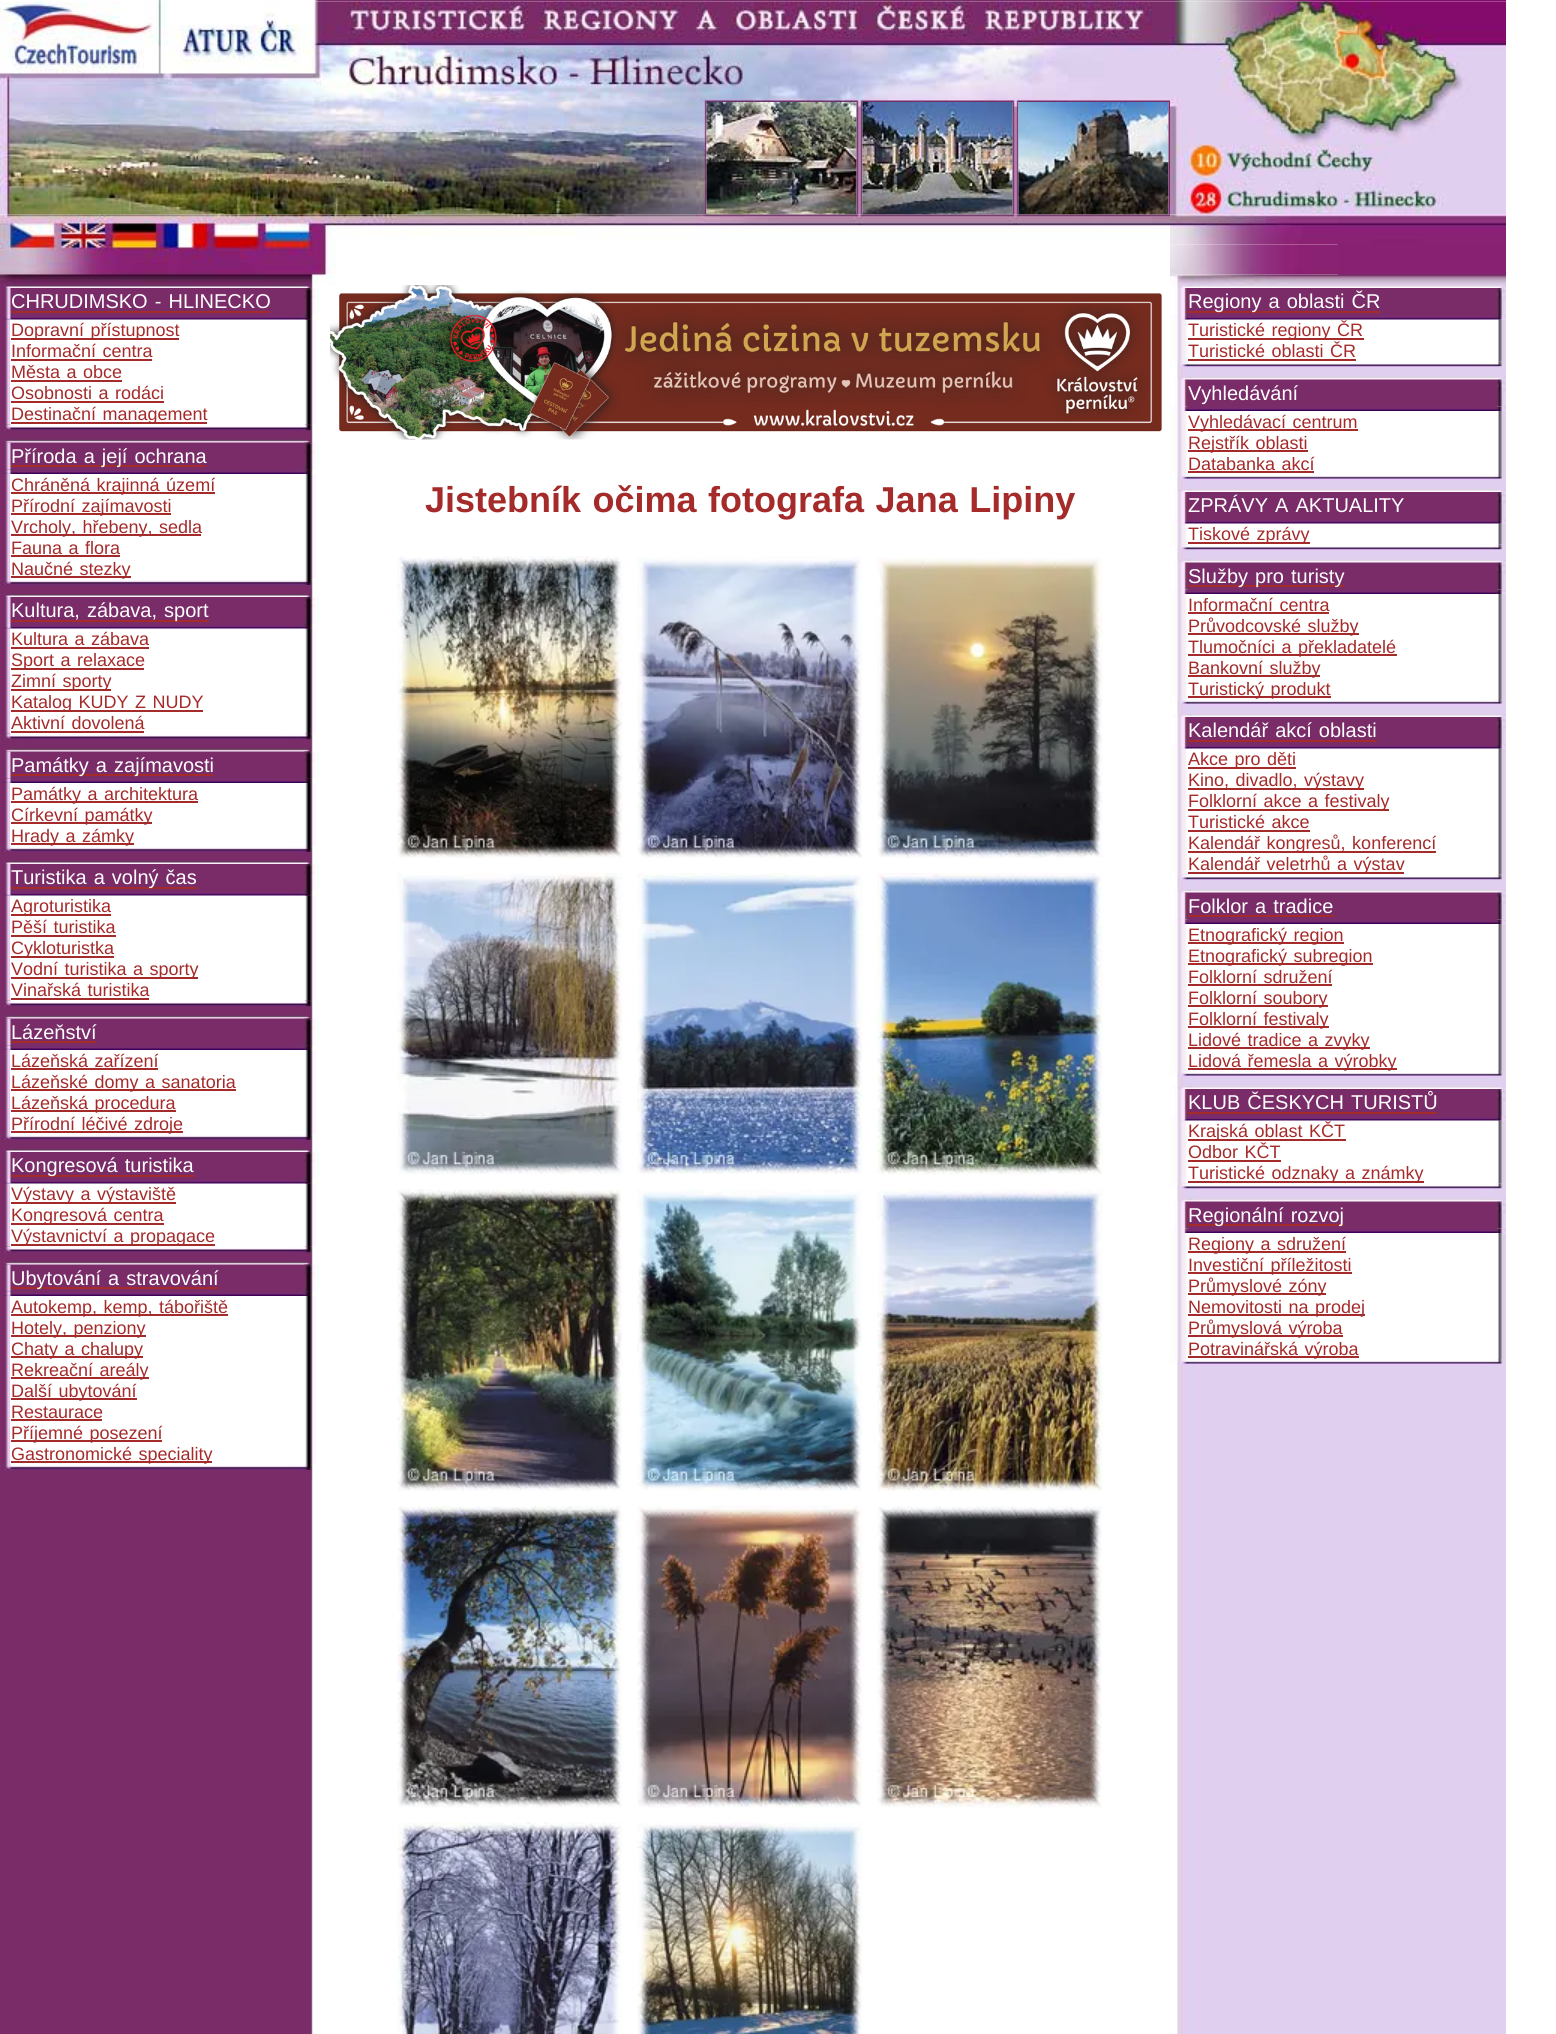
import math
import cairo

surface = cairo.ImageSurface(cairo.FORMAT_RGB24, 1556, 2034)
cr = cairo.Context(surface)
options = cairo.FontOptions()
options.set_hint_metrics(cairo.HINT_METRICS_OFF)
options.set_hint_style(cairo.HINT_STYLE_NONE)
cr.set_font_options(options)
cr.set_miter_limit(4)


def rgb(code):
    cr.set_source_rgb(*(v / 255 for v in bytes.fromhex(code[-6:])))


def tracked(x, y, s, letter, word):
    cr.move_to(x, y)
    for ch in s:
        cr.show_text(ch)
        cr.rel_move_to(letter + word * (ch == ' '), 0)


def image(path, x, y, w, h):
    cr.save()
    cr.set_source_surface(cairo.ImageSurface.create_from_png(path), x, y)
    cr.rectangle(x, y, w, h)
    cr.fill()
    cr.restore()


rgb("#ffffff")
cr.paint()
image("img/1.png", 144, 0, 1362, 2)
image("img/2.png", 0, 1, 1170, 101)
image("img/3.png", 1170, 1, 336, 214)
image("img/4.png", 0, 102, 707, 113)
image("img/5.png", 706, 102, 151, 113)
image("img/6.png", 856, 102, 7, 113)
image("img/7.png", 862, 102, 151, 113)
image("img/8.png", 1012, 102, 7, 113)
image("img/9.png", 1018, 102, 151, 113)
image("img/10.png", 1168, 102, 2, 113)
image("img/11.png", 0, 214, 1170, 71)
image("img/12.png", 1170, 214, 168, 31)
image("img/13.png", 1338, 214, 168, 30)
image("img/14.png", 1170, 244, 168, 31)
rgb("#882172")
cr.rectangle(1338, 244, 168, 31)
cr.fill()
image("img/15.png", 1170, 274, 336, 11)
image("img/16.png", 0, 288, 313, 1746)
image("img/17.png", 0, 285, 313, 3)
image("img/18.png", 0, 288, 11, 27)
rgb("#a52a2a")
cr.rectangle(11, 311, 259, 2)
cr.fill()
image("img/19.png", 304, 288, 15, 27)
image("img/21.png", 0, 319, 10, 106)
rgb("#ffffff")
cr.rectangle(10, 319, 295, 106)
cr.fill()
image("img/22.png", 304, 319, 12, 106)
image("img/20.png", 0, 315, 313, 5)
for x, y, w, h, color in [
    (11, 338, 168, 2, "#a52a2a"),
    (11, 359, 141, 2, "#a52a2a"),
    (11, 380, 111, 2, "#a52a2a"),
    (11, 401, 153, 2, "#a52a2a"),
    (11, 422, 196, 2, "#a52a2a"),
]:
    rgb(color)
    cr.rectangle(x, y, w, h)
    cr.fill()
image("img/23.png", 0, 424, 313, 7)
image("img/24.png", 5, 430, 308, 10)
image("img/25.png", 0, 439, 313, 4)
image("img/26.png", 0, 442, 11, 28)
cr.rectangle(11, 465, 195, 2)
cr.fill()
image("img/27.png", 304, 442, 15, 28)
image("img/28.png", 0, 469, 313, 5)
image("img/29.png", 0, 474, 10, 105)
for x, y, w, h, color in [
    (10, 474, 295, 105, "#ffffff"),
    (11, 492, 204, 2, "#a52a2a"),
    (11, 513, 160, 2, "#a52a2a"),
    (11, 534, 190, 2, "#a52a2a"),
    (11, 555, 109, 2, "#a52a2a"),
    (11, 576, 120, 2, "#a52a2a"),
]:
    rgb(color)
    cr.rectangle(x, y, w, h)
    cr.fill()
image("img/30.png", 304, 474, 12, 105)
image("img/31.png", 0, 579, 313, 6)
image("img/32.png", 311, 585, 2, 9)
image("img/17.png", 0, 594, 313, 3)
image("img/18.png", 0, 597, 11, 27)
cr.rectangle(11, 620, 198, 2)
cr.fill()
image("img/19.png", 304, 597, 15, 27)
image("img/21.png", 0, 628, 10, 106)
rgb("#ffffff")
cr.rectangle(10, 628, 295, 106)
cr.fill()
image("img/22.png", 304, 628, 12, 106)
image("img/20.png", 0, 624, 313, 5)
for x, y, w, h, color in [
    (11, 647, 138, 2, "#a52a2a"),
    (11, 668, 133, 2, "#a52a2a"),
    (11, 689, 100, 2, "#a52a2a"),
    (11, 710, 192, 2, "#a52a2a"),
    (11, 731, 133, 2, "#a52a2a"),
]:
    rgb(color)
    cr.rectangle(x, y, w, h)
    cr.fill()
image("img/23.png", 0, 733, 313, 7)
image("img/24.png", 5, 739, 308, 10)
image("img/25.png", 0, 748, 313, 4)
image("img/26.png", 0, 751, 11, 28)
cr.rectangle(11, 774, 202, 2)
cr.fill()
image("img/27.png", 304, 751, 15, 28)
image("img/28.png", 0, 778, 313, 5)
image("img/33.png", 0, 783, 10, 63)
for x, y, w, h, color in [
    (10, 783, 295, 63, "#ffffff"),
    (11, 801, 187, 2, "#a52a2a"),
    (11, 822, 141, 2, "#a52a2a"),
    (11, 843, 123, 2, "#a52a2a"),
]:
    rgb(color)
    cr.rectangle(x, y, w, h)
    cr.fill()
image("img/34.png", 304, 783, 12, 63)
image("img/31.png", 0, 846, 313, 6)
image("img/32.png", 311, 852, 2, 9)
image("img/17.png", 0, 861, 313, 3)
image("img/18.png", 0, 864, 11, 27)
cr.rectangle(11, 887, 186, 2)
cr.fill()
image("img/19.png", 304, 864, 15, 27)
image("img/21.png", 0, 895, 10, 106)
rgb("#ffffff")
cr.rectangle(10, 895, 295, 106)
cr.fill()
image("img/22.png", 304, 895, 12, 106)
image("img/20.png", 0, 891, 313, 5)
for x, y, w, h, color in [
    (11, 914, 100, 2, "#a52a2a"),
    (11, 935, 105, 2, "#a52a2a"),
    (11, 956, 103, 2, "#a52a2a"),
    (11, 977, 187, 2, "#a52a2a"),
    (11, 998, 138, 2, "#a52a2a"),
]:
    rgb(color)
    cr.rectangle(x, y, w, h)
    cr.fill()
image("img/23.png", 0, 1000, 313, 7)
image("img/24.png", 5, 1006, 308, 10)
image("img/25.png", 0, 1015, 313, 4)
image("img/26.png", 0, 1018, 11, 28)
cr.rectangle(11, 1041, 85, 2)
cr.fill()
image("img/27.png", 304, 1018, 15, 28)
image("img/28.png", 0, 1045, 313, 5)
image("img/35.png", 0, 1050, 10, 84)
for x, y, w, h, color in [
    (10, 1050, 295, 84, "#ffffff"),
    (11, 1068, 147, 2, "#a52a2a"),
    (11, 1089, 225, 2, "#a52a2a"),
    (11, 1110, 165, 2, "#a52a2a"),
    (11, 1131, 172, 2, "#a52a2a"),
]:
    rgb(color)
    cr.rectangle(x, y, w, h)
    cr.fill()
image("img/36.png", 304, 1050, 12, 84)
image("img/31.png", 0, 1134, 313, 6)
image("img/32.png", 311, 1140, 2, 9)
image("img/17.png", 0, 1149, 313, 3)
image("img/18.png", 0, 1152, 11, 27)
cr.rectangle(11, 1175, 183, 2)
cr.fill()
image("img/19.png", 304, 1152, 15, 27)
image("img/37.png", 0, 1183, 10, 64)
rgb("#ffffff")
cr.rectangle(10, 1183, 295, 64)
cr.fill()
image("img/38.png", 304, 1183, 12, 64)
image("img/20.png", 0, 1179, 313, 5)
for x, y, w, h, color in [
    (11, 1202, 165, 2, "#a52a2a"),
    (11, 1223, 153, 2, "#a52a2a"),
    (11, 1244, 204, 2, "#a52a2a"),
]:
    rgb(color)
    cr.rectangle(x, y, w, h)
    cr.fill()
image("img/23.png", 0, 1246, 313, 7)
image("img/24.png", 5, 1252, 308, 10)
image("img/25.png", 0, 1261, 313, 4)
image("img/26.png", 0, 1264, 11, 28)
cr.rectangle(11, 1287, 207, 2)
cr.fill()
image("img/27.png", 304, 1264, 15, 28)
image("img/28.png", 0, 1291, 313, 5)
image("img/39.png", 0, 1296, 10, 168)
for x, y, w, h, color in [
    (10, 1296, 295, 168, "#ffffff"),
    (11, 1314, 217, 2, "#a52a2a"),
    (11, 1335, 135, 2, "#a52a2a"),
    (11, 1356, 132, 2, "#a52a2a"),
    (11, 1377, 138, 2, "#a52a2a"),
    (11, 1398, 126, 2, "#a52a2a"),
    (11, 1419, 91, 2, "#a52a2a"),
    (11, 1440, 151, 2, "#a52a2a"),
    (11, 1461, 201, 2, "#a52a2a"),
]:
    rgb(color)
    cr.rectangle(x, y, w, h)
    cr.fill()
image("img/40.png", 304, 1296, 12, 168)
image("img/31.png", 0, 1464, 313, 6)
image("img/32.png", 311, 1470, 2, 9)
image("img/41.png", 330, 285, 833, 155)
image("img/42.png", 397, 556, 226, 302)
image("img/43.png", 637, 556, 225, 302)
image("img/44.png", 877, 557, 226, 301)
image("img/45.png", 397, 873, 226, 302)
image("img/46.png", 637, 873, 226, 301)
image("img/47.png", 877, 873, 226, 302)
image("img/48.png", 397, 1189, 225, 302)
image("img/49.png", 637, 1189, 225, 302)
image("img/50.png", 877, 1189, 226, 302)
image("img/51.png", 397, 1506, 226, 302)
image("img/52.png", 637, 1506, 226, 302)
image("img/53.png", 877, 1506, 225, 302)
image("img/54.png", 397, 1822, 225, 212)
image("img/55.png", 637, 1822, 226, 212)
image("img/56.png", 1177, 319, 329, 1715)
image("img/57.png", 1173, 285, 333, 3)
image("img/58.png", 1175, 288, 13, 27)
rgb("#7a2c68")
cr.rectangle(1188, 288, 309, 27)
cr.fill()
rgb("#a52a2a")
cr.rectangle(1188, 311, 192, 2)
cr.fill()
image("img/59.png", 1497, 288, 9, 27)
image("img/61.png", 1170, 319, 18, 43)
rgb("#ffffff")
cr.rectangle(1188, 319, 309, 43)
cr.fill()
image("img/62.png", 1497, 319, 9, 43)
image("img/60.png", 1170, 315, 336, 5)
rgb("#a52a2a")
cr.rectangle(1188, 338, 176, 2)
cr.fill()
cr.rectangle(1188, 359, 168, 2)
cr.fill()
image("img/63.png", 1170, 361, 336, 7)
image("img/64.png", 1181, 367, 315, 1)
rgb("#7a2c68")
cr.rectangle(1188, 379, 309, 28)
cr.fill()
image("img/65.png", 1173, 376, 333, 4)
image("img/66.png", 1175, 379, 13, 28)
image("img/67.png", 1497, 379, 9, 28)
image("img/68.png", 1170, 406, 336, 5)
image("img/69.png", 1170, 411, 18, 63)
for x, y, w, h, color in [
    (1188, 411, 309, 63, "#ffffff"),
    (1188, 429, 170, 2, "#a52a2a"),
    (1188, 450, 120, 2, "#a52a2a"),
    (1188, 471, 126, 2, "#a52a2a"),
]:
    rgb(color)
    cr.rectangle(x, y, w, h)
    cr.fill()
image("img/70.png", 1497, 411, 9, 63)
image("img/71.png", 1170, 474, 336, 6)
image("img/57.png", 1173, 489, 333, 3)
image("img/58.png", 1175, 492, 13, 27)
rgb("#7a2c68")
cr.rectangle(1188, 492, 309, 27)
cr.fill()
image("img/59.png", 1497, 492, 9, 27)
image("img/72.png", 1170, 523, 18, 22)
rgb("#ffffff")
cr.rectangle(1188, 523, 309, 22)
cr.fill()
image("img/73.png", 1497, 523, 9, 22)
image("img/60.png", 1170, 519, 336, 5)
rgb("#a52a2a")
cr.rectangle(1188, 542, 122, 2)
cr.fill()
image("img/63.png", 1170, 544, 336, 7)
image("img/64.png", 1181, 550, 315, 1)
rgb("#7a2c68")
cr.rectangle(1188, 562, 309, 28)
cr.fill()
image("img/65.png", 1173, 559, 333, 4)
image("img/66.png", 1175, 562, 13, 28)
rgb("#a52a2a")
cr.rectangle(1188, 585, 156, 2)
cr.fill()
image("img/67.png", 1497, 562, 9, 28)
image("img/68.png", 1170, 589, 336, 5)
image("img/74.png", 1170, 594, 18, 105)
for x, y, w, h, color in [
    (1188, 594, 309, 105, "#ffffff"),
    (1188, 612, 141, 2, "#a52a2a"),
    (1188, 633, 171, 2, "#a52a2a"),
    (1188, 654, 209, 2, "#a52a2a"),
    (1188, 675, 132, 2, "#a52a2a"),
    (1188, 696, 143, 2, "#a52a2a"),
]:
    rgb(color)
    cr.rectangle(x, y, w, h)
    cr.fill()
image("img/75.png", 1497, 594, 9, 105)
image("img/71.png", 1170, 699, 336, 6)
image("img/57.png", 1173, 714, 333, 3)
image("img/58.png", 1175, 717, 13, 27)
rgb("#7a2c68")
cr.rectangle(1188, 717, 309, 27)
cr.fill()
rgb("#a52a2a")
cr.rectangle(1188, 740, 189, 2)
cr.fill()
image("img/59.png", 1497, 717, 9, 27)
image("img/76.png", 1170, 748, 18, 127)
rgb("#ffffff")
cr.rectangle(1188, 748, 309, 127)
cr.fill()
image("img/77.png", 1497, 748, 9, 127)
image("img/60.png", 1170, 744, 336, 5)
for x, y, w, h, color in [
    (1188, 767, 108, 2, "#a52a2a"),
    (1188, 788, 176, 2, "#a52a2a"),
    (1188, 809, 201, 2, "#a52a2a"),
    (1188, 830, 122, 2, "#a52a2a"),
    (1188, 851, 248, 2, "#a52a2a"),
    (1188, 872, 216, 2, "#a52a2a"),
]:
    rgb(color)
    cr.rectangle(x, y, w, h)
    cr.fill()
image("img/63.png", 1170, 874, 336, 7)
image("img/64.png", 1181, 880, 315, 1)
rgb("#7a2c68")
cr.rectangle(1188, 892, 309, 28)
cr.fill()
image("img/65.png", 1173, 889, 333, 4)
image("img/66.png", 1175, 892, 13, 28)
rgb("#a52a2a")
cr.rectangle(1188, 915, 146, 2)
cr.fill()
image("img/67.png", 1497, 892, 9, 28)
image("img/68.png", 1170, 919, 336, 5)
image("img/78.png", 1170, 924, 18, 147)
for x, y, w, h, color in [
    (1188, 924, 309, 147, "#ffffff"),
    (1188, 942, 156, 2, "#a52a2a"),
    (1188, 963, 185, 2, "#a52a2a"),
    (1188, 984, 144, 2, "#a52a2a"),
    (1188, 1005, 140, 2, "#a52a2a"),
    (1188, 1026, 141, 2, "#a52a2a"),
    (1188, 1047, 182, 2, "#a52a2a"),
    (1188, 1068, 209, 2, "#a52a2a"),
]:
    rgb(color)
    cr.rectangle(x, y, w, h)
    cr.fill()
image("img/79.png", 1497, 924, 9, 147)
image("img/71.png", 1170, 1071, 336, 6)
image("img/57.png", 1173, 1086, 333, 3)
image("img/58.png", 1175, 1089, 13, 27)
rgb("#7a2c68")
cr.rectangle(1188, 1089, 309, 27)
cr.fill()
rgb("#a52a2a")
cr.rectangle(1188, 1112, 249, 2)
cr.fill()
image("img/59.png", 1497, 1089, 9, 27)
image("img/80.png", 1170, 1120, 18, 64)
rgb("#ffffff")
cr.rectangle(1188, 1120, 309, 64)
cr.fill()
image("img/81.png", 1497, 1120, 9, 64)
image("img/60.png", 1170, 1116, 336, 5)
for x, y, w, h, color in [
    (1188, 1139, 158, 2, "#a52a2a"),
    (1188, 1160, 93, 2, "#a52a2a"),
    (1188, 1181, 236, 2, "#a52a2a"),
]:
    rgb(color)
    cr.rectangle(x, y, w, h)
    cr.fill()
image("img/63.png", 1170, 1183, 336, 7)
image("img/64.png", 1181, 1189, 315, 1)
rgb("#7a2c68")
cr.rectangle(1188, 1201, 309, 28)
cr.fill()
image("img/65.png", 1173, 1198, 333, 4)
image("img/66.png", 1175, 1201, 13, 28)
rgb("#a52a2a")
cr.rectangle(1188, 1224, 156, 2)
cr.fill()
image("img/67.png", 1497, 1201, 9, 28)
image("img/68.png", 1170, 1228, 336, 5)
image("img/82.png", 1170, 1233, 18, 126)
for x, y, w, h, color in [
    (1188, 1233, 309, 126, "#ffffff"),
    (1188, 1251, 158, 2, "#a52a2a"),
    (1188, 1272, 164, 2, "#a52a2a"),
    (1188, 1293, 138, 2, "#a52a2a"),
    (1188, 1314, 177, 2, "#a52a2a"),
    (1188, 1335, 155, 2, "#a52a2a"),
    (1188, 1356, 171, 2, "#a52a2a"),
]:
    rgb(color)
    cr.rectangle(x, y, w, h)
    cr.fill()
image("img/83.png", 1497, 1233, 9, 126)
image("img/71.png", 1170, 1359, 336, 6)
cr.select_font_face("Liberation Sans")
cr.set_font_size(20)
rgb("#ffffff")
tracked(11, 308, "CHRUDIMSKO - HLINECKO", 0, 1.5)
cr.set_font_size(18)
rgb("#a52a2a")
for x, y, s in [
    (11, 336, "Dopravní přístupnost"),
    (11, 357, "Informační centra"),
    (11, 378, "Města a obce"),
    (11, 399, "Osobnosti a rodáci"),
    (11, 420, "Destinační management"),
]:
    tracked(x, y, s, 0, 1.5)
cr.set_font_size(20)
rgb("#ffffff")
tracked(11, 463, "Příroda a její ochrana", 0, 1.5)
cr.set_font_size(18)
rgb("#a52a2a")
for x, y, s in [
    (11, 491, "Chráněná krajinná území"),
    (11, 512, "Přírodní zajímavosti"),
    (11, 533, "Vrcholy, hřebeny, sedla"),
    (11, 554, "Fauna a flora"),
    (11, 575, "Naučné stezky"),
]:
    tracked(x, y, s, 0, 1.5)
cr.set_font_size(20)
rgb("#ffffff")
tracked(11, 617, "Kultura, zábava, sport", 0, 1.5)
cr.set_font_size(18)
rgb("#a52a2a")
for x, y, s in [
    (11, 645, "Kultura a zábava"),
    (11, 666, "Sport a relaxace"),
    (11, 687, "Zimní sporty"),
    (11, 708, "Katalog KUDY Z NUDY"),
    (11, 729, "Aktivní dovolená"),
]:
    tracked(x, y, s, 0, 1.5)
cr.set_font_size(20)
rgb("#ffffff")
tracked(11, 772, "Památky a zajímavosti", 0, 1.5)
cr.set_font_size(18)
rgb("#a52a2a")
for x, y, s in [
    (11, 800, "Památky a architektura"),
    (11, 821, "Církevní památky"),
    (11, 842, "Hrady a zámky"),
]:
    tracked(x, y, s, 0, 1.5)
cr.set_font_size(20)
rgb("#ffffff")
tracked(11, 884, "Turistika a volný čas", 0, 1.5)
cr.set_font_size(18)
rgb("#a52a2a")
cr.move_to(11, 912)
cr.show_text("Agroturistika")
tracked(11, 933, "Pěší turistika", 0, 1.5)
cr.move_to(11, 954)
cr.show_text("Cykloturistka")
tracked(11, 975, "Vodní turistika a sporty", 0, 1.5)
tracked(11, 996, "Vinařská turistika", 0, 1.5)
cr.set_font_size(20)
rgb("#ffffff")
cr.move_to(11, 1039)
cr.show_text("Lázeňství")
cr.set_font_size(18)
rgb("#a52a2a")
for x, y, s in [
    (11, 1067, "Lázeňská zařízení"),
    (11, 1088, "Lázeňské domy a sanatoria"),
    (11, 1109, "Lázeňská procedura"),
    (11, 1130, "Přírodní léčivé zdroje"),
]:
    tracked(x, y, s, 0, 1.5)
cr.set_font_size(20)
rgb("#ffffff")
tracked(11, 1172, "Kongresová turistika", 0, 1.5)
cr.set_font_size(18)
rgb("#a52a2a")
for x, y, s in [
    (11, 1200, "Výstavy a výstaviště"),
    (11, 1221, "Kongresová centra"),
    (11, 1242, "Výstavnictví a propagace"),
]:
    tracked(x, y, s, 0, 1.5)
cr.set_font_size(20)
rgb("#ffffff")
tracked(11, 1285, "Ubytování a stravování", 0, 1.5)
cr.set_font_size(18)
rgb("#a52a2a")
for x, y, s in [
    (11, 1313, "Autokemp, kemp, tábořiště"),
    (11, 1334, "Hotely, penziony"),
    (11, 1355, "Chaty a chalupy"),
    (11, 1376, "Rekreační areály"),
    (11, 1397, "Další ubytování"),
]:
    tracked(x, y, s, 0, 1.5)
cr.move_to(11, 1418)
cr.show_text("Restaurace")
tracked(11, 1439, "Příjemné posezení", 0, 1.5)
tracked(11, 1460, "Gastronomické speciality", 0, 1.5)
cr.select_font_face("Liberation Sans", cairo.FONT_SLANT_NORMAL, cairo.FONT_WEIGHT_BOLD)
cr.set_font_size(36)
tracked(425, 512, "Jistebník očima fotografa Jana Lipiny", 0, 1.5)
cr.select_font_face("Liberation Sans")
cr.set_font_size(20)
rgb("#ffffff")
tracked(1188, 308, "Regiony a oblasti ČR", 0, 1.5)
cr.set_font_size(18)
rgb("#a52a2a")
tracked(1188, 336, "Turistické regiony ČR", 0, 1.5)
tracked(1188, 357, "Turistické oblasti ČR", 0, 1.5)
cr.set_font_size(20)
rgb("#ffffff")
cr.move_to(1188, 400)
cr.show_text("Vyhledávání")
cr.set_font_size(18)
rgb("#a52a2a")
for x, y, s in [
    (1188, 428, "Vyhledávací centrum"),
    (1188, 449, "Rejstřík oblasti"),
    (1188, 470, "Databanka akcí"),
]:
    tracked(x, y, s, 0, 1.5)
cr.set_font_size(20)
rgb("#ffffff")
tracked(1188, 512, "ZPRÁVY A AKTUALITY", 0, 1.5)
cr.set_font_size(18)
rgb("#a52a2a")
tracked(1188, 540, "Tiskové zprávy", 0, 1.5)
cr.set_font_size(20)
rgb("#ffffff")
tracked(1188, 583, "Služby pro turisty", 0, 1.5)
cr.set_font_size(18)
rgb("#a52a2a")
for x, y, s in [
    (1188, 611, "Informační centra"),
    (1188, 632, "Průvodcovské služby"),
    (1188, 653, "Tlumočníci a překladatelé"),
    (1188, 674, "Bankovní služby"),
    (1188, 695, "Turistický produkt"),
]:
    tracked(x, y, s, 0, 1.5)
cr.set_font_size(20)
rgb("#ffffff")
tracked(1188, 737, "Kalendář akcí oblasti", 0, 1.5)
cr.set_font_size(18)
rgb("#a52a2a")
for x, y, s in [
    (1188, 765, "Akce pro děti"),
    (1188, 786, "Kino, divadlo, výstavy"),
    (1188, 807, "Folklorní akce a festivaly"),
    (1188, 828, "Turistické akce"),
    (1188, 849, "Kalendář kongresů, konferencí"),
    (1188, 870, "Kalendář veletrhů a výstav"),
]:
    tracked(x, y, s, 0, 1.5)
cr.set_font_size(20)
rgb("#ffffff")
tracked(1188, 913, "Folklor a tradice", 0, 1.5)
cr.set_font_size(18)
rgb("#a52a2a")
for x, y, s in [
    (1188, 941, "Etnografický region"),
    (1188, 962, "Etnografický subregion"),
    (1188, 983, "Folklorní sdružení"),
    (1188, 1004, "Folklorní soubory"),
    (1188, 1025, "Folklorní festivaly"),
    (1188, 1046, "Lidové tradice a zvyky"),
    (1188, 1067, "Lidová řemesla a výrobky"),
]:
    tracked(x, y, s, 0, 1.5)
cr.set_font_size(20)
rgb("#ffffff")
tracked(1188, 1109, "KLUB ČESKYCH TURISTŮ", 0, 1.5)
cr.set_font_size(18)
rgb("#a52a2a")
for x, y, s in [
    (1188, 1137, "Krajská oblast KČT"),
    (1188, 1158, "Odbor KČT"),
    (1188, 1179, "Turistické odznaky a známky"),
]:
    tracked(x, y, s, 0, 1.5)
cr.set_font_size(20)
rgb("#ffffff")
tracked(1188, 1222, "Regionální rozvoj", 0, 1.5)
cr.set_font_size(18)
rgb("#a52a2a")
for x, y, s in [
    (1188, 1250, "Regiony a sdružení"),
    (1188, 1271, "Investiční příležitosti"),
    (1188, 1292, "Průmyslové zóny"),
    (1188, 1313, "Nemovitosti na prodej"),
    (1188, 1334, "Průmyslová výroba"),
    (1188, 1355, "Potravinářská výroba"),
]:
    tracked(x, y, s, 0, 1.5)
surface.write_to_png("page.png")
